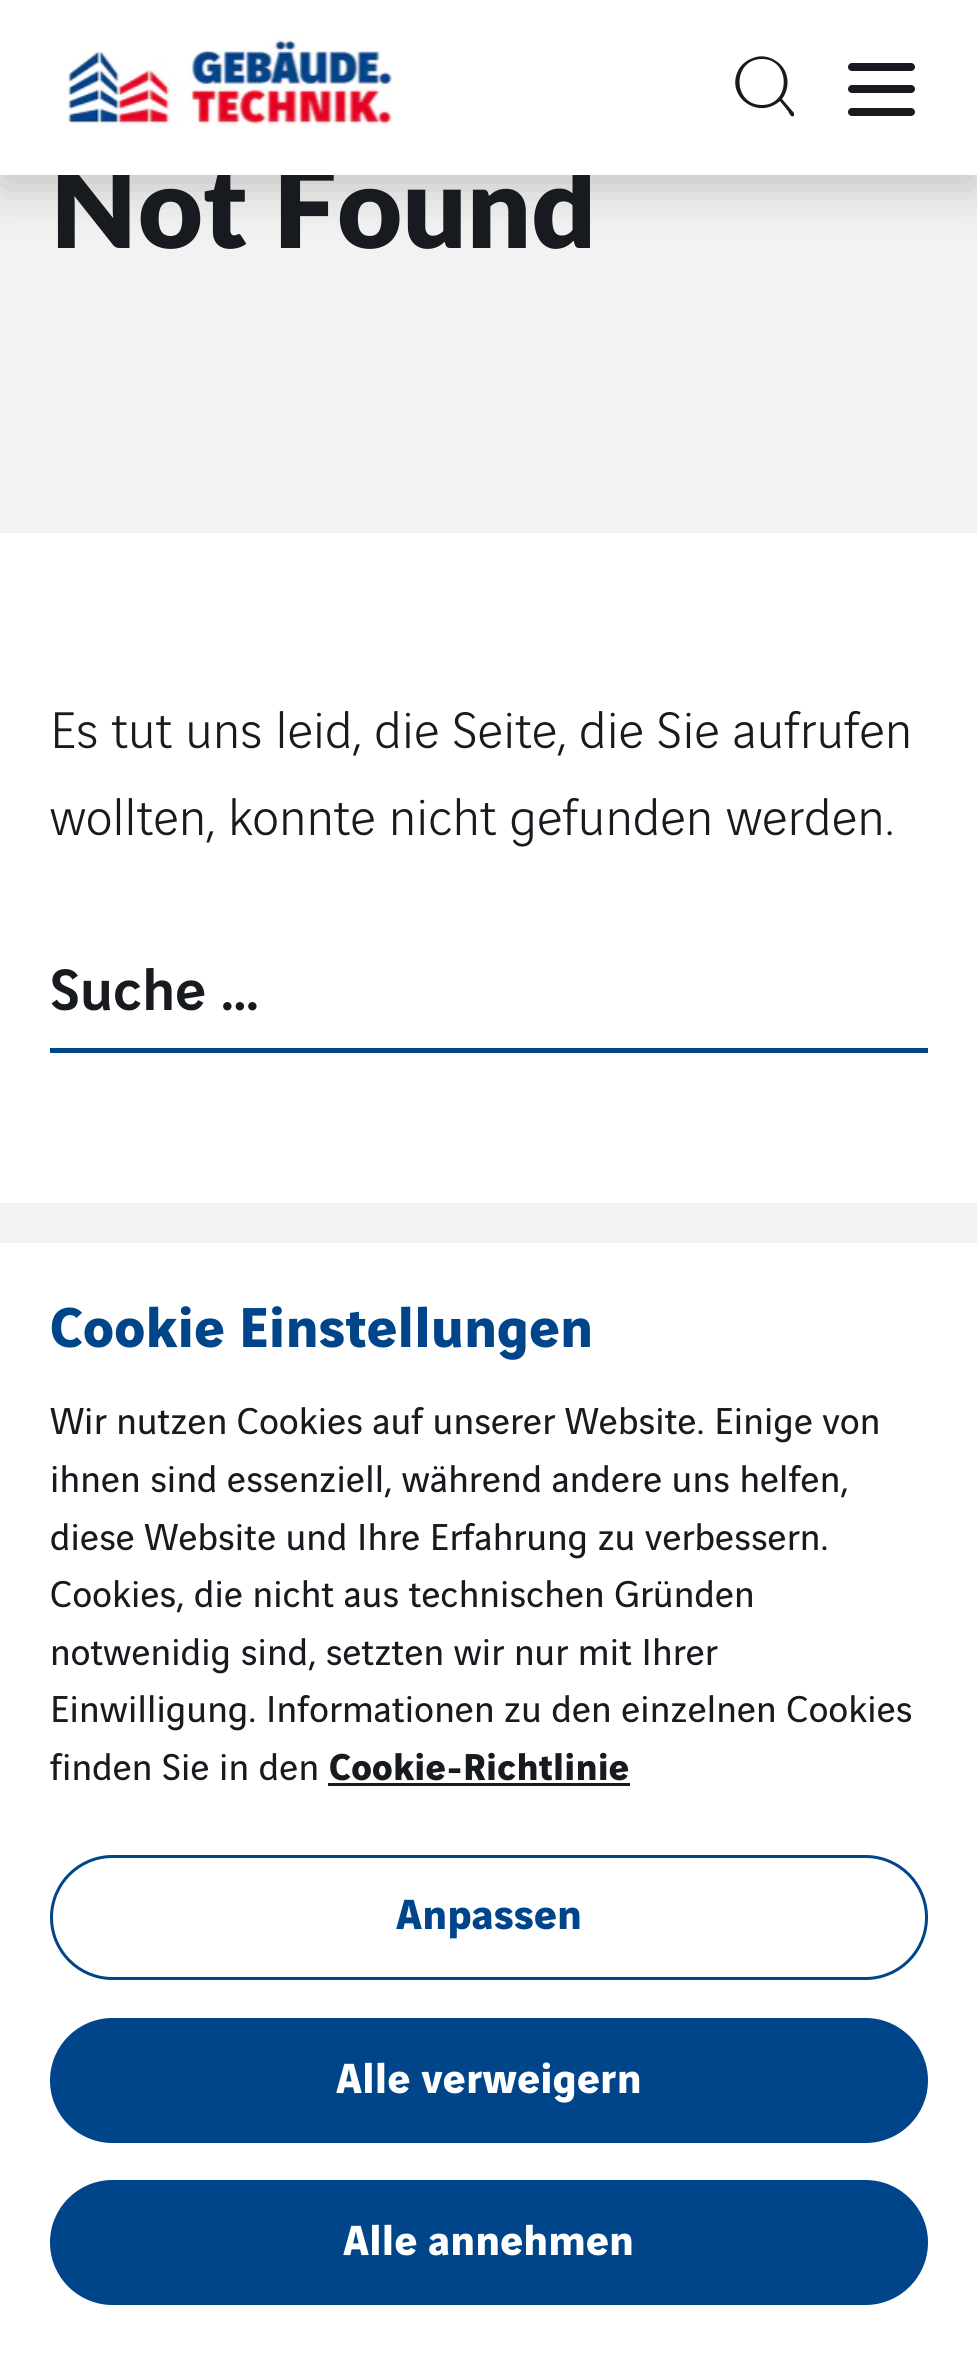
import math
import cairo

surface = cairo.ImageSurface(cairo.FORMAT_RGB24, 977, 2355)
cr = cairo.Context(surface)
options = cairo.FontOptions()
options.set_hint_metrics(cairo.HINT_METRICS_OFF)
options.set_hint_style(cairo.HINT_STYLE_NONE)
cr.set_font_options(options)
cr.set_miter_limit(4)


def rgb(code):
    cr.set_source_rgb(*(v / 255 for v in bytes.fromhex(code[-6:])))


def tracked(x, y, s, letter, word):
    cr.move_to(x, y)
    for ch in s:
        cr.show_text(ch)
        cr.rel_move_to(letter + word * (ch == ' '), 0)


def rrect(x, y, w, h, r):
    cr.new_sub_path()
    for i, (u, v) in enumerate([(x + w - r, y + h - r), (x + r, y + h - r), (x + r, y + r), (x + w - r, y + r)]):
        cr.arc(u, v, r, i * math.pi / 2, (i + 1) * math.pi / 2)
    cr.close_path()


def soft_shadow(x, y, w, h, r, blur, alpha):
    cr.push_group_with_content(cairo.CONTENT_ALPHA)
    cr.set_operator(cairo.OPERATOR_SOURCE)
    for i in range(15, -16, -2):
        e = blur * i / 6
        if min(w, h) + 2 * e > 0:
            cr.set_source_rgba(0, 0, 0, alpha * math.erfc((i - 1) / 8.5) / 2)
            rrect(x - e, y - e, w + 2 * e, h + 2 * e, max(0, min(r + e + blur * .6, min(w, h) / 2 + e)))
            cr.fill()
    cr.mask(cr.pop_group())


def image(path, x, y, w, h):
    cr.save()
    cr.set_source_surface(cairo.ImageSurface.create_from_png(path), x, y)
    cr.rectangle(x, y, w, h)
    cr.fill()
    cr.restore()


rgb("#ffffff")
cr.paint()
rgb("#f2f2f2")
cr.rectangle(0, 175, 977, 358)
cr.fill()
rgb("#000000")
soft_shadow(0, 13, 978, 175, 0, 25, 0.2)
for x, y, w, h, color in [
    (50, 1048, 878, 5, "#004489"),
    (0, 1203, 977, 40, "#f2f2f2"),
    (328, 1783, 302, 3, "#171a1e"),
]:
    rgb(color)
    cr.rectangle(x, y, w, h)
    cr.fill()
rrect(51.5, 1856.5, 875, 122, 61)
rgb("#004489")
cr.set_line_width(3)
cr.stroke()
rrect(51.5, 2019.5, 875, 122, 61)
cr.fill_preserve()
cr.stroke()
rrect(51.5, 2181.5, 875, 122, 61)
cr.fill_preserve()
cr.stroke()
cr.select_font_face("Lato Black")
cr.set_font_size(112.5)
rgb("#171a1e")
tracked(50, 248, "Not Found", 0.25, 0)
rgb("#ffffff")
cr.rectangle(0, 0, 977, 175)
cr.fill()
rgb("#171a1e")
rrect(848, 108, 67, 8, 4)
cr.fill()
rrect(848, 85, 67, 8, 4)
cr.fill()
rrect(848, 63, 67, 8, 4)
cr.fill()
cr.new_path()
cr.move_to(794, 113)
cr.line_to(782, 99)
cr.curve_to(791, 87, 789, 69, 776, 61)
cr.curve_to(769, 56, 760, 55, 753, 58)
cr.curve_to(747, 60, 742, 64, 739, 69)
cr.curve_to(724, 95, 757, 121, 780, 101)
cr.line_to(788, 111)
cr.curve_to(789, 113, 791, 118, 794, 116)
cr.close_path()
cr.move_to(762, 105)
cr.curve_to(732, 105, 732, 59, 762, 59)
cr.curve_to(791, 59, 791, 105, 762, 105)
cr.close_path()
cr.fill()
image("img/1.png", 63, 37, 330, 90)
cr.select_font_face("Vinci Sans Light")
cr.set_font_size(55)
tracked(50, 748, "Es tut uns leid, die Seite, die Sie aufrufen", 0.25, 0)
tracked(50, 835, "wollten, konnte nicht gefunden werden.", 0.25, 0)
cr.select_font_face("Vinci Sans Medium")
cr.set_font_size(62.5)
cr.move_to(50, 1010)
cr.show_text("Suche …")
cr.select_font_face("Vinci Sans", cairo.FONT_SLANT_NORMAL, cairo.FONT_WEIGHT_BOLD)
cr.set_font_size(60)
rgb("#004489")
tracked(50, 1347, "Cookie Einstellungen", 0.25, 0)
cr.select_font_face("Vinci Sans")
cr.set_font_size(40)
rgb("#171a1e")
for x, y, s in [
    (50, 1434, "Wir nutzen Cookies auf unserer Website. Einige von"),
    (50, 1492, "ihnen sind essenziell, während andere uns helfen,"),
    (50, 1550, "diese Website und Ihre Erfahrung zu verbessern."),
    (50, 1607, "Cookies, die nicht aus technischen Gründen"),
    (50, 1665, "notwenidig sind, setzten wir nur mit Ihrer"),
    (50, 1722, "Einwilligung. Informationen zu den einzelnen Cookies"),
    (50, 1780, "finden Sie in den"),
]:
    tracked(x, y, s, 0.25, 0)
cr.select_font_face("Vinci Sans", cairo.FONT_SLANT_NORMAL, cairo.FONT_WEIGHT_BOLD)
tracked(329, 1780, "Cookie-Richtlinie", 0.25, 0)
cr.set_font_size(45)
rgb("#004489")
tracked(396, 1929, "Anpassen", 0.25, 0)
rgb("#ffffff")
tracked(336, 2093, "Alle verweigern", 0.25, 0)
tracked(343, 2255, "Alle annehmen", 0.25, 0)
surface.write_to_png("page.png")
